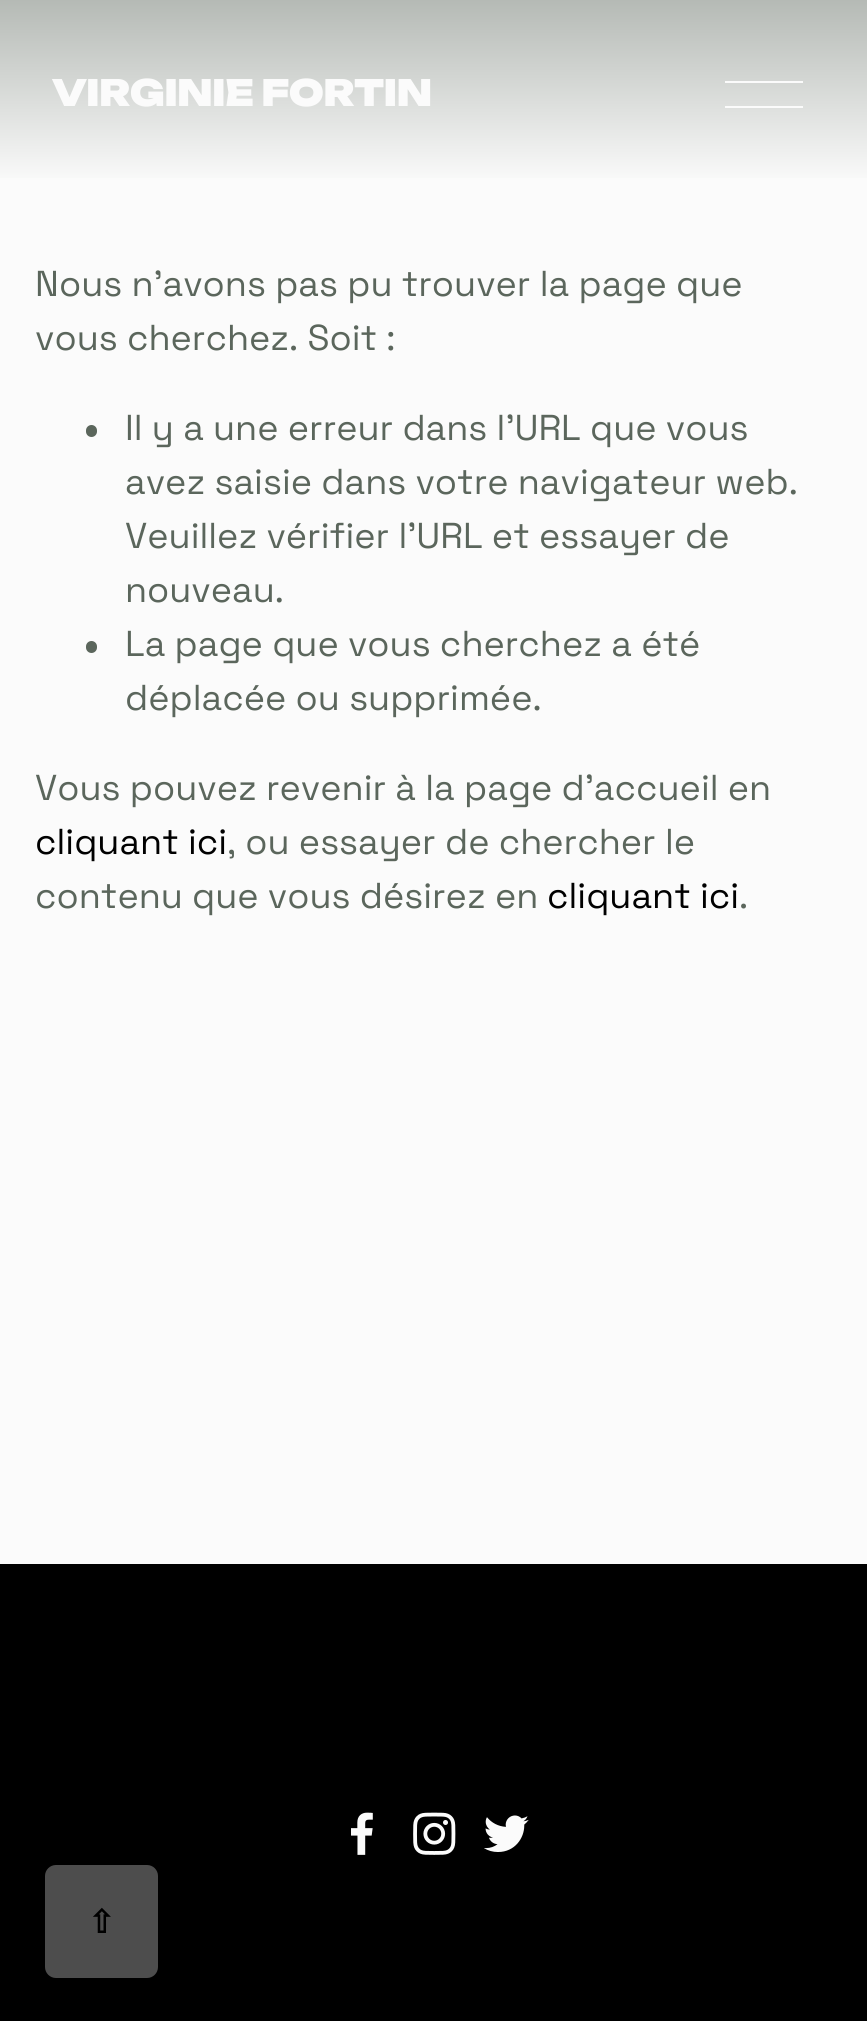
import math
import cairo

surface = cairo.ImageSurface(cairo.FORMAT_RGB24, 867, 2021)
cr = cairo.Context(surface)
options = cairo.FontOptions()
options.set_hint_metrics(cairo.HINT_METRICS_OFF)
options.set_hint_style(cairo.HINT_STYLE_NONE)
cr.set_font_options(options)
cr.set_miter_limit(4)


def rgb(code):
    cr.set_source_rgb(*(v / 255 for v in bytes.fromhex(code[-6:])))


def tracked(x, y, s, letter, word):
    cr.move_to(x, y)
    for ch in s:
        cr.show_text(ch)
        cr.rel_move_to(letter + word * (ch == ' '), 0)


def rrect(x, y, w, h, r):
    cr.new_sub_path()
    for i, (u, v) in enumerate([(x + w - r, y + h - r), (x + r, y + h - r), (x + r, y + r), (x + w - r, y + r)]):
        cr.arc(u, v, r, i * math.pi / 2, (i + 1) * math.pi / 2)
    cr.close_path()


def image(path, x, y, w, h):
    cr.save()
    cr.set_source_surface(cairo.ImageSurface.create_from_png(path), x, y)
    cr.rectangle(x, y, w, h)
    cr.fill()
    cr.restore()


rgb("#fbfbfb")
cr.paint()
gradient = cairo.LinearGradient(434, 0, 434, 187)
gradient.add_color_stop_rgba(0, 0.71, 0.729, 0.71, 1)
gradient.add_color_stop_rgba(1, 0.988, 0.988, 0.988, 1)
cr.set_source(gradient)
cr.rectangle(0, 0, 867, 178)
cr.fill()
rgb("#fbfbfb")
cr.rectangle(725, 81, 78, 2)
cr.fill()
cr.rectangle(725, 106, 78, 2)
cr.fill()
rgb("#5b665c")
rrect(86, 425, 11, 12, 5.5)
cr.fill()
rrect(86, 641, 11, 12, 5.5)
cr.fill()
rgb("#000000")
cr.rectangle(0, 1564, 867, 457)
cr.fill()
image("img/1.png", 351, 1812, 22, 43)
image("img/2.png", 413, 1812, 43, 43)
image("img/3.png", 484, 1815, 45, 37)
rgb("#4d4d4d")
rrect(45, 1865, 113, 113, 11)
cr.fill()
cr.select_font_face("Unbounded Black")
cr.set_font_size(36)
rgb("#fbfbfb")
tracked(52, 106, "VIRGINIE FORTIN", -0.75, 0)
cr.select_font_face("Space Grotesk")
rgb("#5b665c")
for x, y, s in [
    (35, 296, "Nous n'avons pas pu trouver la page que"),
    (35, 350, "vous cherchez. Soit :"),
    (125, 440, "Il y a une erreur dans l'URL que vous"),
    (125, 494, "avez saisie dans votre navigateur web."),
    (125, 548, "Veuillez vérifier l'URL et essayer de"),
    (125, 602, "nouveau."),
    (125, 656, "La page que vous cherchez a été"),
    (125, 710, "déplacée ou supprimée."),
    (35, 800, "Vous pouvez revenir à la page d'accueil en"),
]:
    cr.move_to(x, y)
    cr.show_text(s)
rgb("#000000")
cr.move_to(35, 854)
cr.show_text("cliquant ici")
rgb("#5b665c")
cr.move_to(227, 854)
cr.show_text(", ou essayer de chercher le")
cr.move_to(35, 908)
cr.show_text("contenu que vous désirez en")
rgb("#000000")
cr.move_to(547, 908)
cr.show_text("cliquant ici")
rgb("#5b665c")
cr.move_to(739, 908)
cr.show_text(".")
cr.select_font_face("DejaVu Sans", cairo.FONT_SLANT_NORMAL, cairo.FONT_WEIGHT_BOLD)
cr.set_font_size(32)
rgb("#000000")
tracked(88, 1933, "⇧", 4, 0)
surface.write_to_png("page.png")
